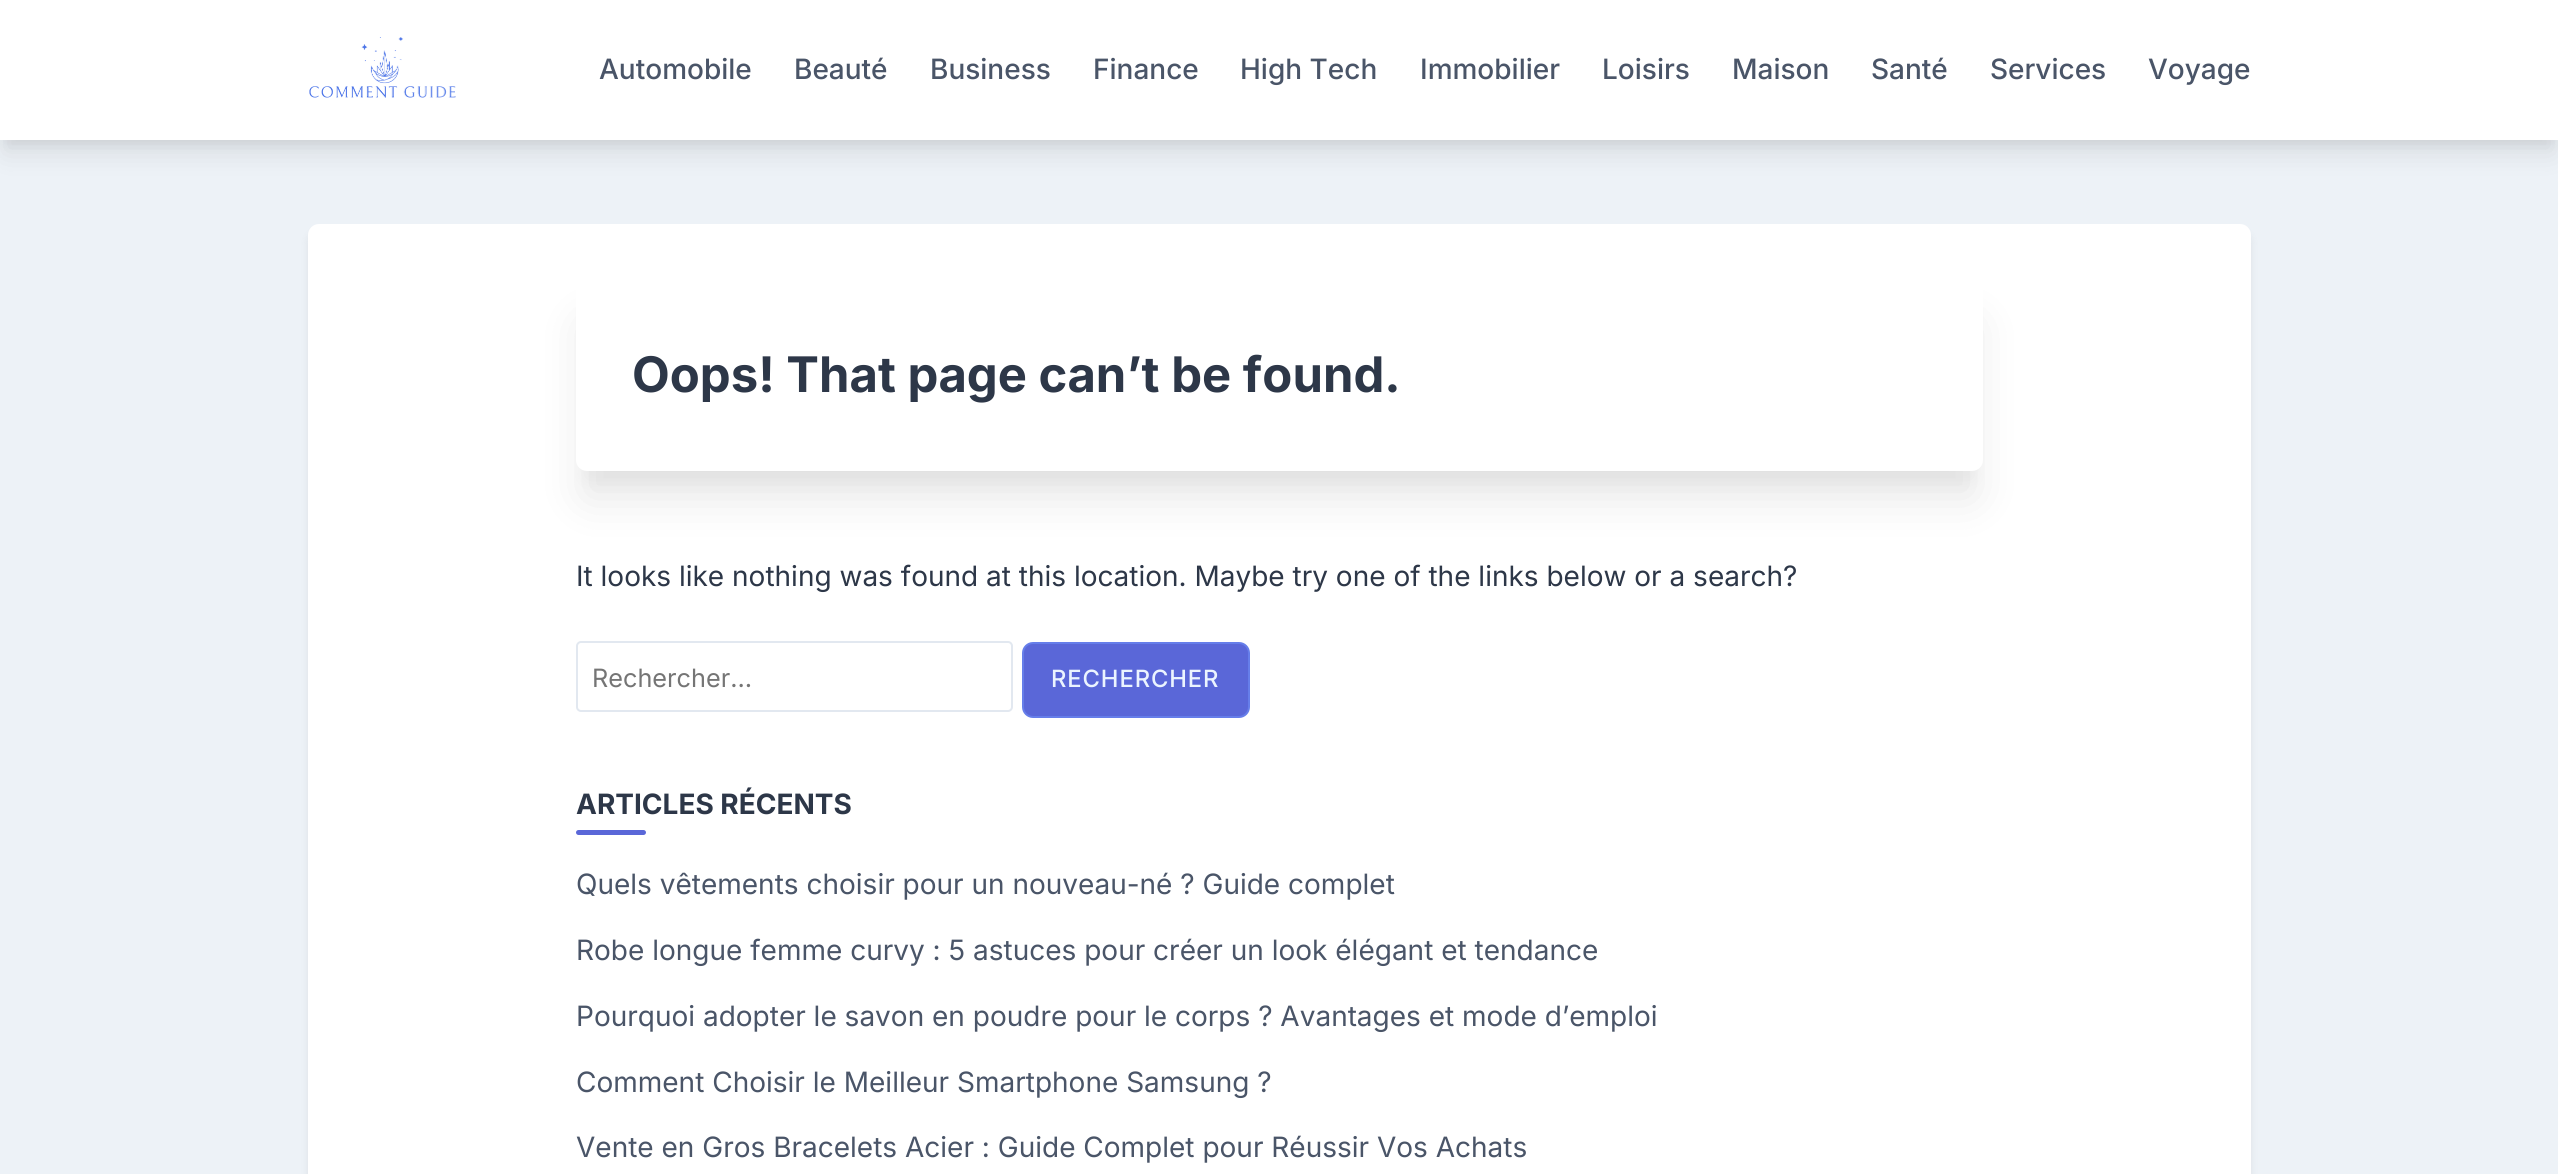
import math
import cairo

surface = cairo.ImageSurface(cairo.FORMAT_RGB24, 2558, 1174)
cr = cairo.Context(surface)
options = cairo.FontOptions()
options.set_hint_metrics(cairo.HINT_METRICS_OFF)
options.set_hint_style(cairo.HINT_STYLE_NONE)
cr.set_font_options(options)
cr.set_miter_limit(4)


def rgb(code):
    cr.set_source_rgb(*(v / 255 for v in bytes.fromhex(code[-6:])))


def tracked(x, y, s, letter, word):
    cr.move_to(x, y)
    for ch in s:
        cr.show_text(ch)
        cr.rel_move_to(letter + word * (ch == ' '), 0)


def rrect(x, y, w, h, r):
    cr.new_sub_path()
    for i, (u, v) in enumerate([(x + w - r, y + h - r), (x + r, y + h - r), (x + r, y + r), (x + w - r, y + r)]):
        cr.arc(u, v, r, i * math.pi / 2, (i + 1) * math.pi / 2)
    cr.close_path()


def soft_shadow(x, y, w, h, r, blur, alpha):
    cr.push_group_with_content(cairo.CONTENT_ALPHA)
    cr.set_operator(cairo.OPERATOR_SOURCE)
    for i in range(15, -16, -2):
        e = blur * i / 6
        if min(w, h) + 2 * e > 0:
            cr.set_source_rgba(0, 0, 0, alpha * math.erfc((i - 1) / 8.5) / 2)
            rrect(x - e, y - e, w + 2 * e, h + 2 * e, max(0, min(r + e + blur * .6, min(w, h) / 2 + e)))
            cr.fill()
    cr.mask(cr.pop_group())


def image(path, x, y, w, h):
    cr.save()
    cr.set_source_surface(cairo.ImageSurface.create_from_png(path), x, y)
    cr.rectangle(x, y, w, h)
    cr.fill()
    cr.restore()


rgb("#edf2f7")
cr.paint()
rgb("#000000")
soft_shadow(4, 11, 2551, 133, 0, 5, 0.05)
soft_shadow(5, 23, 2548, 129, 0, 13, 0.1)
rgb("#ffffff")
cr.rectangle(0, 0, 2558, 140)
cr.fill()
image("img/1.png", 309, 37, 147, 61)
rgb("#000000")
soft_shadow(310, 233, 1939, 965, 9, 5, 0.1)
rgb("#ffffff")
rrect(308, 224, 1943, 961, 11)
cr.fill()
rgb("#000000")
soft_shadow(585, 306, 1389, 174, 2, 9, 0.04)
soft_shadow(585, 324, 1389, 173, 2, 22, 0.1)
rgb("#ffffff")
rrect(576, 280, 1407, 191, 11)
cr.fill()
rrect(577, 642, 435, 69, 4)
rgb("#e2e8f0")
cr.stroke()
rgb("#5a67d8")
rrect(1023, 643, 226, 74, 10)
cr.fill_preserve()
rgb("#667eea")
cr.stroke()
rgb("#5a67d8")
rrect(576, 830, 70, 5, 2.5)
cr.fill()
cr.select_font_face("Inter Medium")
cr.set_font_size(28)
rgb("#4a5568")
for x, y, s in [
    (599, 79, "Automobile"),
    (794, 79, "Beauté"),
    (930, 79, "Business"),
    (1093, 79, "Finance"),
    (1240, 79, "High Tech"),
    (1420, 79, "Immobilier"),
    (1602, 79, "Loisirs"),
    (1732, 79, "Maison"),
    (1871, 79, "Santé"),
    (1990, 79, "Services"),
    (2148, 79, "Voyage"),
]:
    cr.move_to(x, y)
    cr.show_text(s)
cr.select_font_face("Inter", cairo.FONT_SLANT_NORMAL, cairo.FONT_WEIGHT_BOLD)
cr.set_font_size(49)
rgb("#2d3748")
cr.move_to(632, 392)
cr.show_text("Oops! That page can’t be found.")
cr.select_font_face("Inter")
cr.set_font_size(28)
cr.move_to(576, 586)
cr.show_text("It looks like nothing was found at this location. Maybe try one of the links below or a search?")
cr.set_font_size(25.25)
rgb("#757575")
cr.move_to(592, 687)
cr.show_text("Rechercher…")
cr.select_font_face("Inter Medium")
cr.set_font_size(23.75)
rgb("#ebf4ff")
tracked(1051, 687, "RECHERCHER", 0.9, 0)
cr.select_font_face("Inter", cairo.FONT_SLANT_NORMAL, cairo.FONT_WEIGHT_BOLD)
cr.set_font_size(28)
rgb("#2d3748")
cr.move_to(576, 814)
cr.show_text("ARTICLES RÉCENTS")
cr.select_font_face("Inter")
rgb("#4a5568")
for x, y, s in [
    (576, 894, "Quels vêtements choisir pour un nouveau-né ? Guide complet"),
    (576, 960, "Robe longue femme curvy : 5 astuces pour créer un look élégant et tendance"),
    (576, 1026, "Pourquoi adopter le savon en poudre pour le corps ? Avantages et mode d’emploi"),
    (576, 1092, "Comment Choisir le Meilleur Smartphone Samsung ?"),
    (576, 1157, "Vente en Gros Bracelets Acier : Guide Complet pour Réussir Vos Achats"),
]:
    cr.move_to(x, y)
    cr.show_text(s)
surface.write_to_png("page.png")
